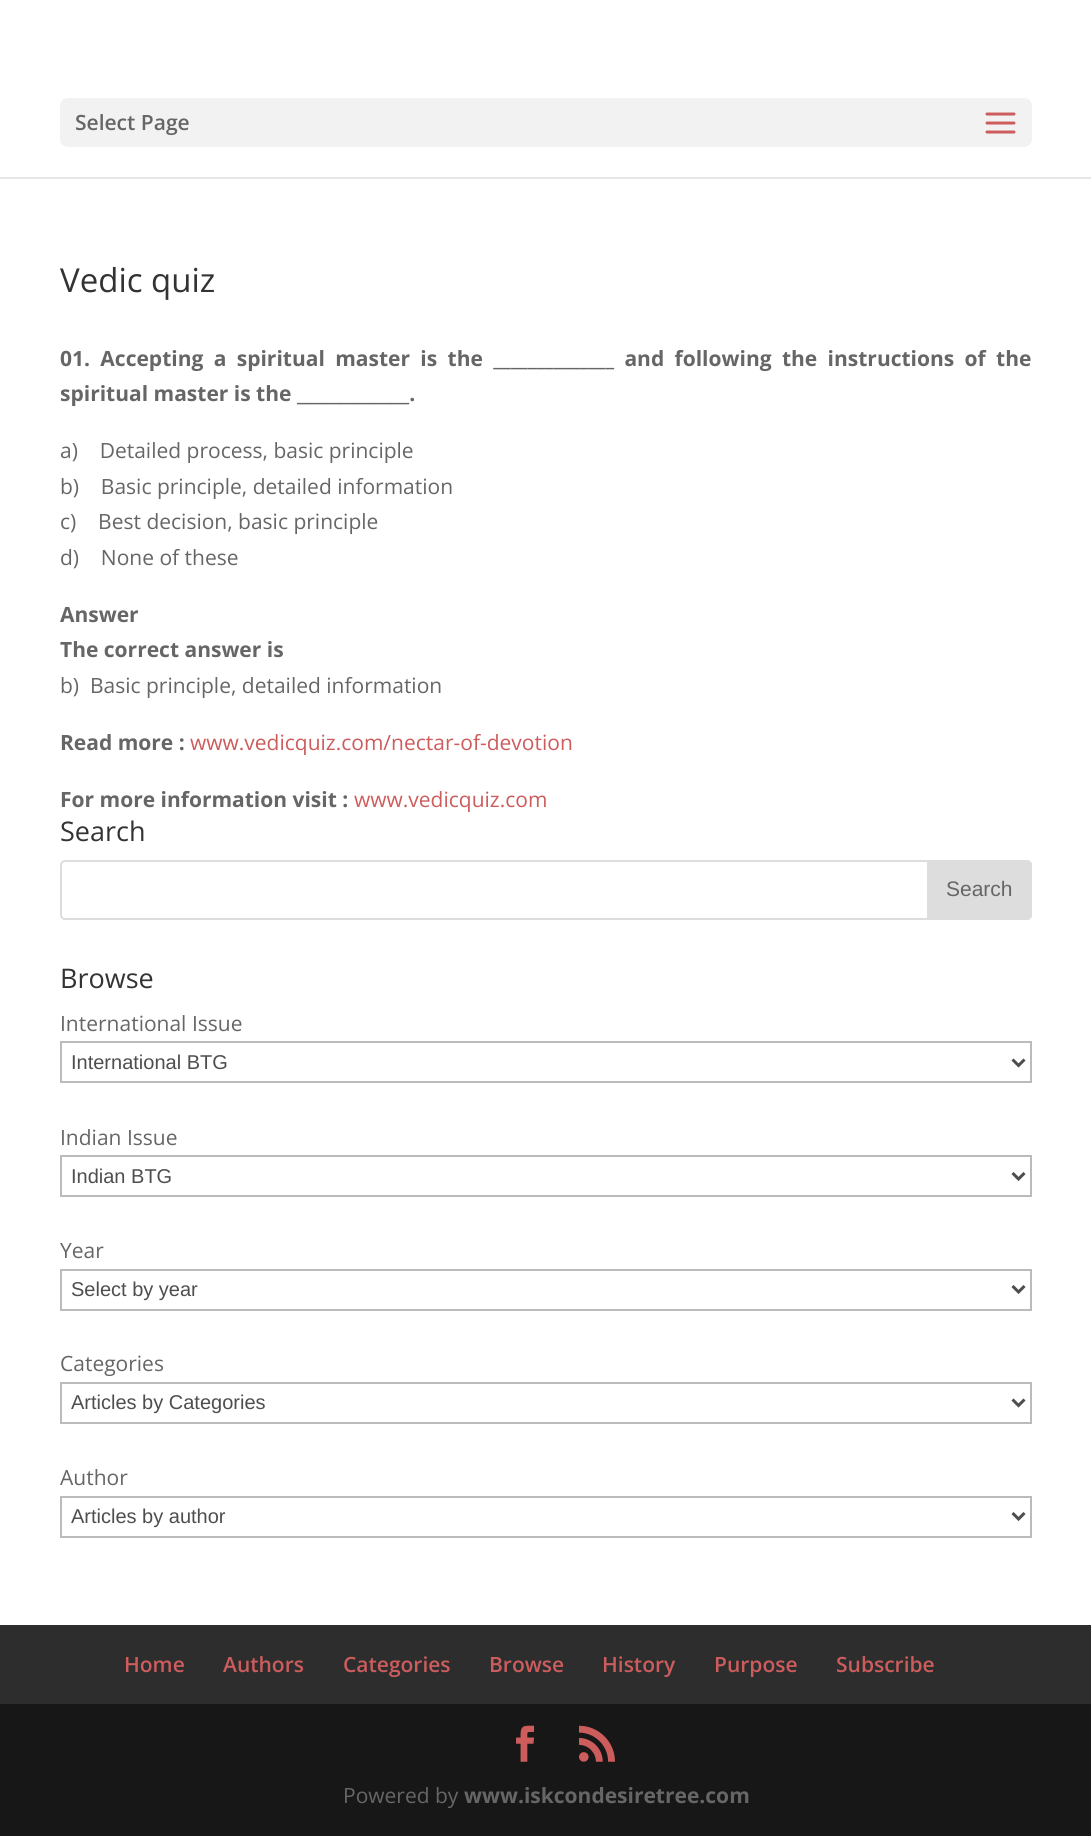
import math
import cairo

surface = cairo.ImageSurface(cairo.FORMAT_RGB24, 1091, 1838)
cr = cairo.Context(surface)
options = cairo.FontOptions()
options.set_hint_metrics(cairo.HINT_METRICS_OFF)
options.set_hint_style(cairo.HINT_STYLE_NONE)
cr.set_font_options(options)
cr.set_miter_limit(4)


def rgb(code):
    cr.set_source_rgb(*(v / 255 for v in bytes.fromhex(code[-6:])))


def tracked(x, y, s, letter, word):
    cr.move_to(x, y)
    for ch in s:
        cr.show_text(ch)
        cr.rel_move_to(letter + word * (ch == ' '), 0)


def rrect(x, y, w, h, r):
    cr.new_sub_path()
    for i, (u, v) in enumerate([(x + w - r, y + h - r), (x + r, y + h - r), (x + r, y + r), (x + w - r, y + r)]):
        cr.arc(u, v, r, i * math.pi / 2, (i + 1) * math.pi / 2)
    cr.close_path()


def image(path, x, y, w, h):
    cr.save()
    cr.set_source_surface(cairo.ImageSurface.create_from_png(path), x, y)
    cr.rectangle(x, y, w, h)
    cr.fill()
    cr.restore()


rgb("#ffffff")
cr.paint()
rgb("#e6e6e6")
cr.rectangle(0, 177, 1091, 2)
cr.fill()
rgb("#f2f2f2")
rrect(60, 98, 972, 49, 8)
cr.fill()
image("img/1.png", 985, 112, 31, 22)
rrect(61, 861, 970, 58, 4)
rgb("#dddddd")
cr.stroke()
cr.new_path()
cr.move_to(928, 861)
cr.line_to(1027, 861)
cr.curve_to(1029, 861, 1031, 863, 1031, 865)
cr.line_to(1031, 915)
cr.curve_to(1031, 917, 1029, 919, 1027, 919)
cr.line_to(928, 919)
cr.close_path()
cr.fill_preserve()
cr.stroke()
cr.rectangle(61, 1042, 970, 40)
rgb("#bbbbbb")
cr.stroke()
cr.new_path()
cr.move_to(1012.5, 1059.5)
cr.line_to(1018.5, 1065.5)
cr.line_to(1024.5, 1059.5)
rgb("#4e4e4e")
cr.set_line_width(3)
cr.stroke()
cr.rectangle(61, 1156, 970, 40)
rgb("#bbbbbb")
cr.set_line_width(2)
cr.stroke()
cr.new_path()
cr.move_to(1012.5, 1173)
cr.line_to(1018.5, 1179)
cr.line_to(1024.5, 1173)
rgb("#4e4e4e")
cr.set_line_width(3)
cr.stroke()
cr.rectangle(61, 1270, 970, 40)
rgb("#bbbbbb")
cr.set_line_width(2)
cr.stroke()
cr.new_path()
cr.move_to(1012.5, 1286)
cr.line_to(1018.5, 1292)
cr.line_to(1024.5, 1286)
rgb("#4e4e4e")
cr.set_line_width(3)
cr.stroke()
cr.rectangle(61, 1383, 970, 40)
rgb("#bbbbbb")
cr.set_line_width(2)
cr.stroke()
cr.new_path()
cr.move_to(1012.5, 1399.5)
cr.line_to(1018.5, 1405.5)
cr.line_to(1024.5, 1399.5)
rgb("#4e4e4e")
cr.set_line_width(3)
cr.stroke()
cr.rectangle(61, 1497, 970, 40)
rgb("#bbbbbb")
cr.set_line_width(2)
cr.stroke()
cr.new_path()
cr.move_to(1012.5, 1513)
cr.line_to(1018.5, 1519)
cr.line_to(1024.5, 1513)
rgb("#4e4e4e")
cr.set_line_width(3)
cr.stroke()
rgb("#2d2d2d")
cr.rectangle(0, 1625, 1091, 79)
cr.fill()
rgb("#171717")
cr.rectangle(0, 1704, 1091, 132)
cr.fill()
image("img/2.png", 516, 1725, 19, 37)
image("img/3.png", 579, 1725, 36, 37)
cr.select_font_face("Open Sans SemiBold")
cr.set_font_size(21)
rgb("#666666")
cr.move_to(75, 130)
cr.show_text("Select Page")
cr.select_font_face("Open Sans")
cr.set_font_size(33)
rgb("#333333")
cr.move_to(60, 292)
cr.show_text("Vedic quiz")
cr.select_font_face("Open Sans", cairo.FONT_SLANT_NORMAL, cairo.FONT_WEIGHT_BOLD)
cr.set_font_size(21)
rgb("#666666")
tracked(60, 366, "01. Accepting a spiritual master is the ______________ and following the instructions of the", 0, 4.9)
cr.move_to(60, 401)
cr.show_text("spiritual master is the _____________.")
cr.select_font_face("Open Sans")
for x, y, s in [
    (60, 458, "a)    Detailed process, basic principle"),
    (60, 494, "b)    Basic principle, detailed information"),
    (60, 529, "c)    Best decision, basic principle"),
    (60, 565, "d)    None of these"),
]:
    cr.move_to(x, y)
    cr.show_text(s)
cr.select_font_face("Open Sans", cairo.FONT_SLANT_NORMAL, cairo.FONT_WEIGHT_BOLD)
cr.move_to(60, 622)
cr.show_text("Answer")
cr.move_to(60, 657)
cr.show_text("The correct answer is")
cr.select_font_face("Open Sans")
cr.move_to(60, 693)
cr.show_text("b)  Basic principle, detailed information")
cr.select_font_face("Open Sans", cairo.FONT_SLANT_NORMAL, cairo.FONT_WEIGHT_BOLD)
cr.move_to(60, 750)
cr.show_text("Read more :")
cr.select_font_face("Open Sans")
rgb("#cd5c5c")
cr.move_to(190, 750)
cr.show_text("www.vedicquiz.com/nectar-of-devotion")
cr.select_font_face("Open Sans", cairo.FONT_SLANT_NORMAL, cairo.FONT_WEIGHT_BOLD)
rgb("#666666")
cr.move_to(60, 807)
cr.show_text("For more information visit :")
cr.select_font_face("Open Sans")
rgb("#cd5c5c")
cr.move_to(354, 807)
cr.show_text("www.vedicquiz.com")
cr.set_font_size(27)
rgb("#333333")
cr.move_to(60, 841)
cr.show_text("Search")
cr.select_font_face("Liberation Sans")
cr.set_font_size(21)
rgb("#666666")
cr.move_to(946, 896)
cr.show_text("Search")
cr.select_font_face("Open Sans")
cr.set_font_size(27)
rgb("#333333")
cr.move_to(60, 988)
cr.show_text("Browse")
cr.set_font_size(21)
rgb("#666666")
cr.move_to(60, 1031)
cr.show_text("International Issue")
cr.select_font_face("Liberation Sans")
cr.set_font_size(20)
rgb("#4e4e4e")
cr.move_to(71, 1069)
cr.show_text("International BTG")
cr.select_font_face("Open Sans")
cr.set_font_size(21)
rgb("#666666")
cr.move_to(60, 1145)
cr.show_text("Indian Issue")
cr.select_font_face("Liberation Sans")
cr.set_font_size(20)
rgb("#4e4e4e")
cr.move_to(71, 1183)
cr.show_text("Indian BTG")
cr.select_font_face("Open Sans")
cr.set_font_size(21)
rgb("#666666")
cr.move_to(60, 1258)
cr.show_text("Year")
cr.select_font_face("Liberation Sans")
cr.set_font_size(20)
rgb("#4e4e4e")
cr.move_to(71, 1296)
cr.show_text("Select by year")
cr.select_font_face("Open Sans")
cr.set_font_size(21)
rgb("#666666")
cr.move_to(60, 1371)
cr.show_text("Categories")
cr.select_font_face("Liberation Sans")
cr.set_font_size(20)
rgb("#4e4e4e")
cr.move_to(71, 1409)
cr.show_text("Articles by Categories")
cr.select_font_face("Open Sans")
cr.set_font_size(21)
rgb("#666666")
cr.move_to(60, 1485)
cr.show_text("Author")
cr.select_font_face("Liberation Sans")
cr.set_font_size(20)
rgb("#4e4e4e")
cr.move_to(71, 1523)
cr.show_text("Articles by author")
cr.select_font_face("Open Sans SemiBold")
cr.set_font_size(21)
rgb("#cd5c5c")
for x, y, s in [
    (124, 1672, "Home"),
    (223, 1672, "Authors"),
    (343, 1672, "Categories"),
    (489, 1672, "Browse"),
    (602, 1672, "History"),
    (714, 1672, "Purpose"),
    (836, 1672, "Subscribe"),
]:
    cr.move_to(x, y)
    cr.show_text(s)
cr.select_font_face("Open Sans")
rgb("#666666")
cr.move_to(343, 1803)
cr.show_text("Powered by")
cr.select_font_face("Open Sans", cairo.FONT_SLANT_NORMAL, cairo.FONT_WEIGHT_BOLD)
cr.move_to(464, 1803)
cr.show_text("www.iskcondesiretree.com")
surface.write_to_png("page.png")
